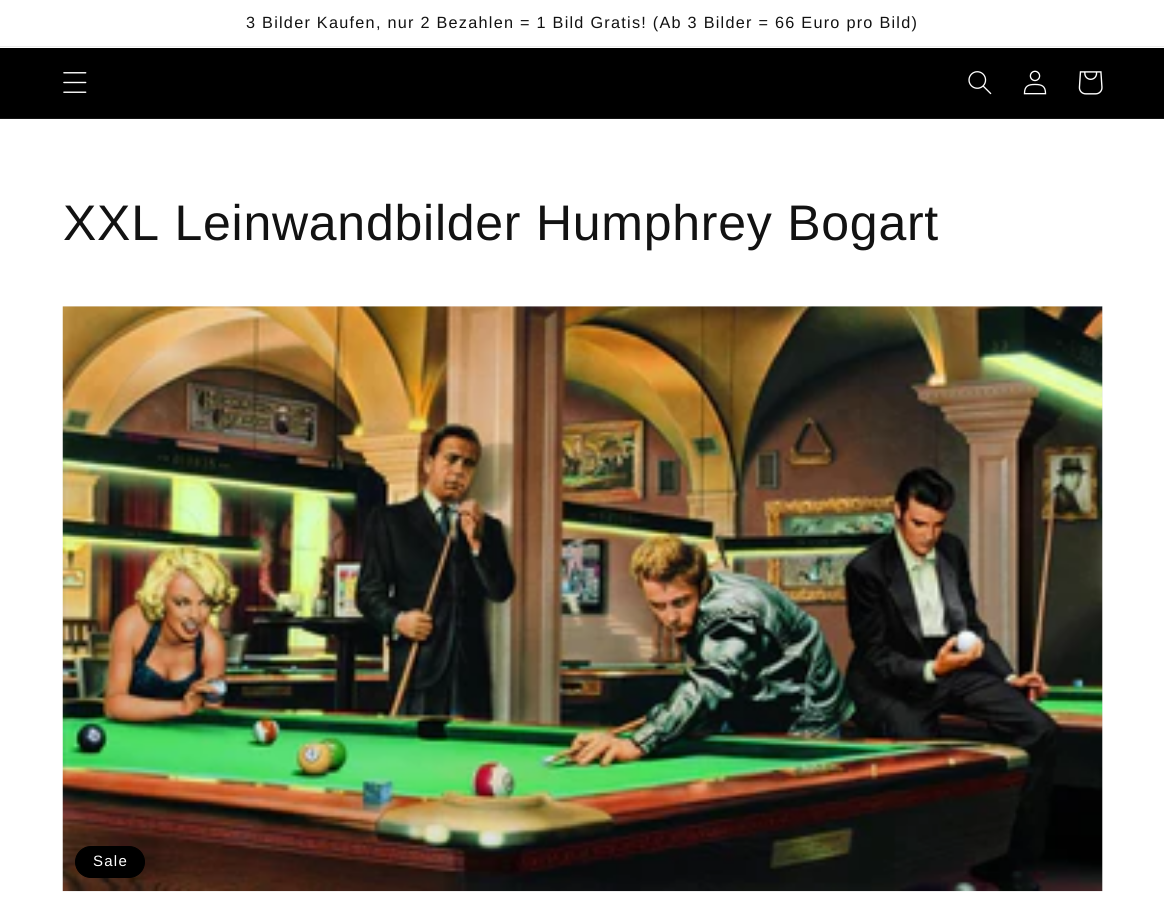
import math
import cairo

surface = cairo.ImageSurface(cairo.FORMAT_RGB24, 1164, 923)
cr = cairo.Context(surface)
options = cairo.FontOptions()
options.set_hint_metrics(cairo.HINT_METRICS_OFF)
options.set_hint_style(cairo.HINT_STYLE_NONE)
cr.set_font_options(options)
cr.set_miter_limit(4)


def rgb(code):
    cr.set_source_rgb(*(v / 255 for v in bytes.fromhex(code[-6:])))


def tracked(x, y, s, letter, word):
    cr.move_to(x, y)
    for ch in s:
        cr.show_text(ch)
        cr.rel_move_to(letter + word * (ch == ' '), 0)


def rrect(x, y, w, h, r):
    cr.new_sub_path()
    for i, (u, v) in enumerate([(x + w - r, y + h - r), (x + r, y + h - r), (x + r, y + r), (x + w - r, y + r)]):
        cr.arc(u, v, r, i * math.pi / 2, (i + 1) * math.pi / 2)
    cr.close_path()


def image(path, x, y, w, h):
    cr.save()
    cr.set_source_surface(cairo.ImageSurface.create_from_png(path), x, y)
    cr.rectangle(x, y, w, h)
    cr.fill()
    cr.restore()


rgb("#ffffff")
cr.paint()
for x, y, w, h, color in [
    (0, 46, 1164, 1, "#ececec"),
    (0, 48, 1164, 70, "#000000"),
    (0, 118, 1164, 1, "#141414"),
]:
    rgb(color)
    cr.rectangle(x, y, w, h)
    cr.fill()
image("img/1.png", 63, 72, 24, 21)
image("img/2.png", 968, 71, 24, 24)
image("img/3.png", 1023, 70, 24, 25)
image("img/4.png", 1078, 71, 25, 24)
rgb("#f3f3f3")
cr.rectangle(63, 306, 1040, 585)
cr.fill()
image("img/5.png", 62, 306, 1041, 586)
rgb("#000000")
rrect(75.5, 846.5, 69, 31, 15.5)
cr.fill_preserve()
cr.set_line_width(1)
cr.stroke()
cr.select_font_face("Liberation Sans")
cr.set_font_size(16.25)
rgb("#121212")
tracked(246, 28, "3 Bilder Kaufen, nur 2 Bezahlen = 1 Bild Gratis! (Ab 3 Bilder = 66 Euro pro Bild)", 1.25, 0)
cr.set_font_size(50)
tracked(63, 240, "XXL Leinwandbilder Humphrey Bogart", 0.75, 0)
cr.set_font_size(15)
rgb("#ffffff")
tracked(93, 866, "Sale", 1.25, 0)
surface.write_to_png("page.png")
